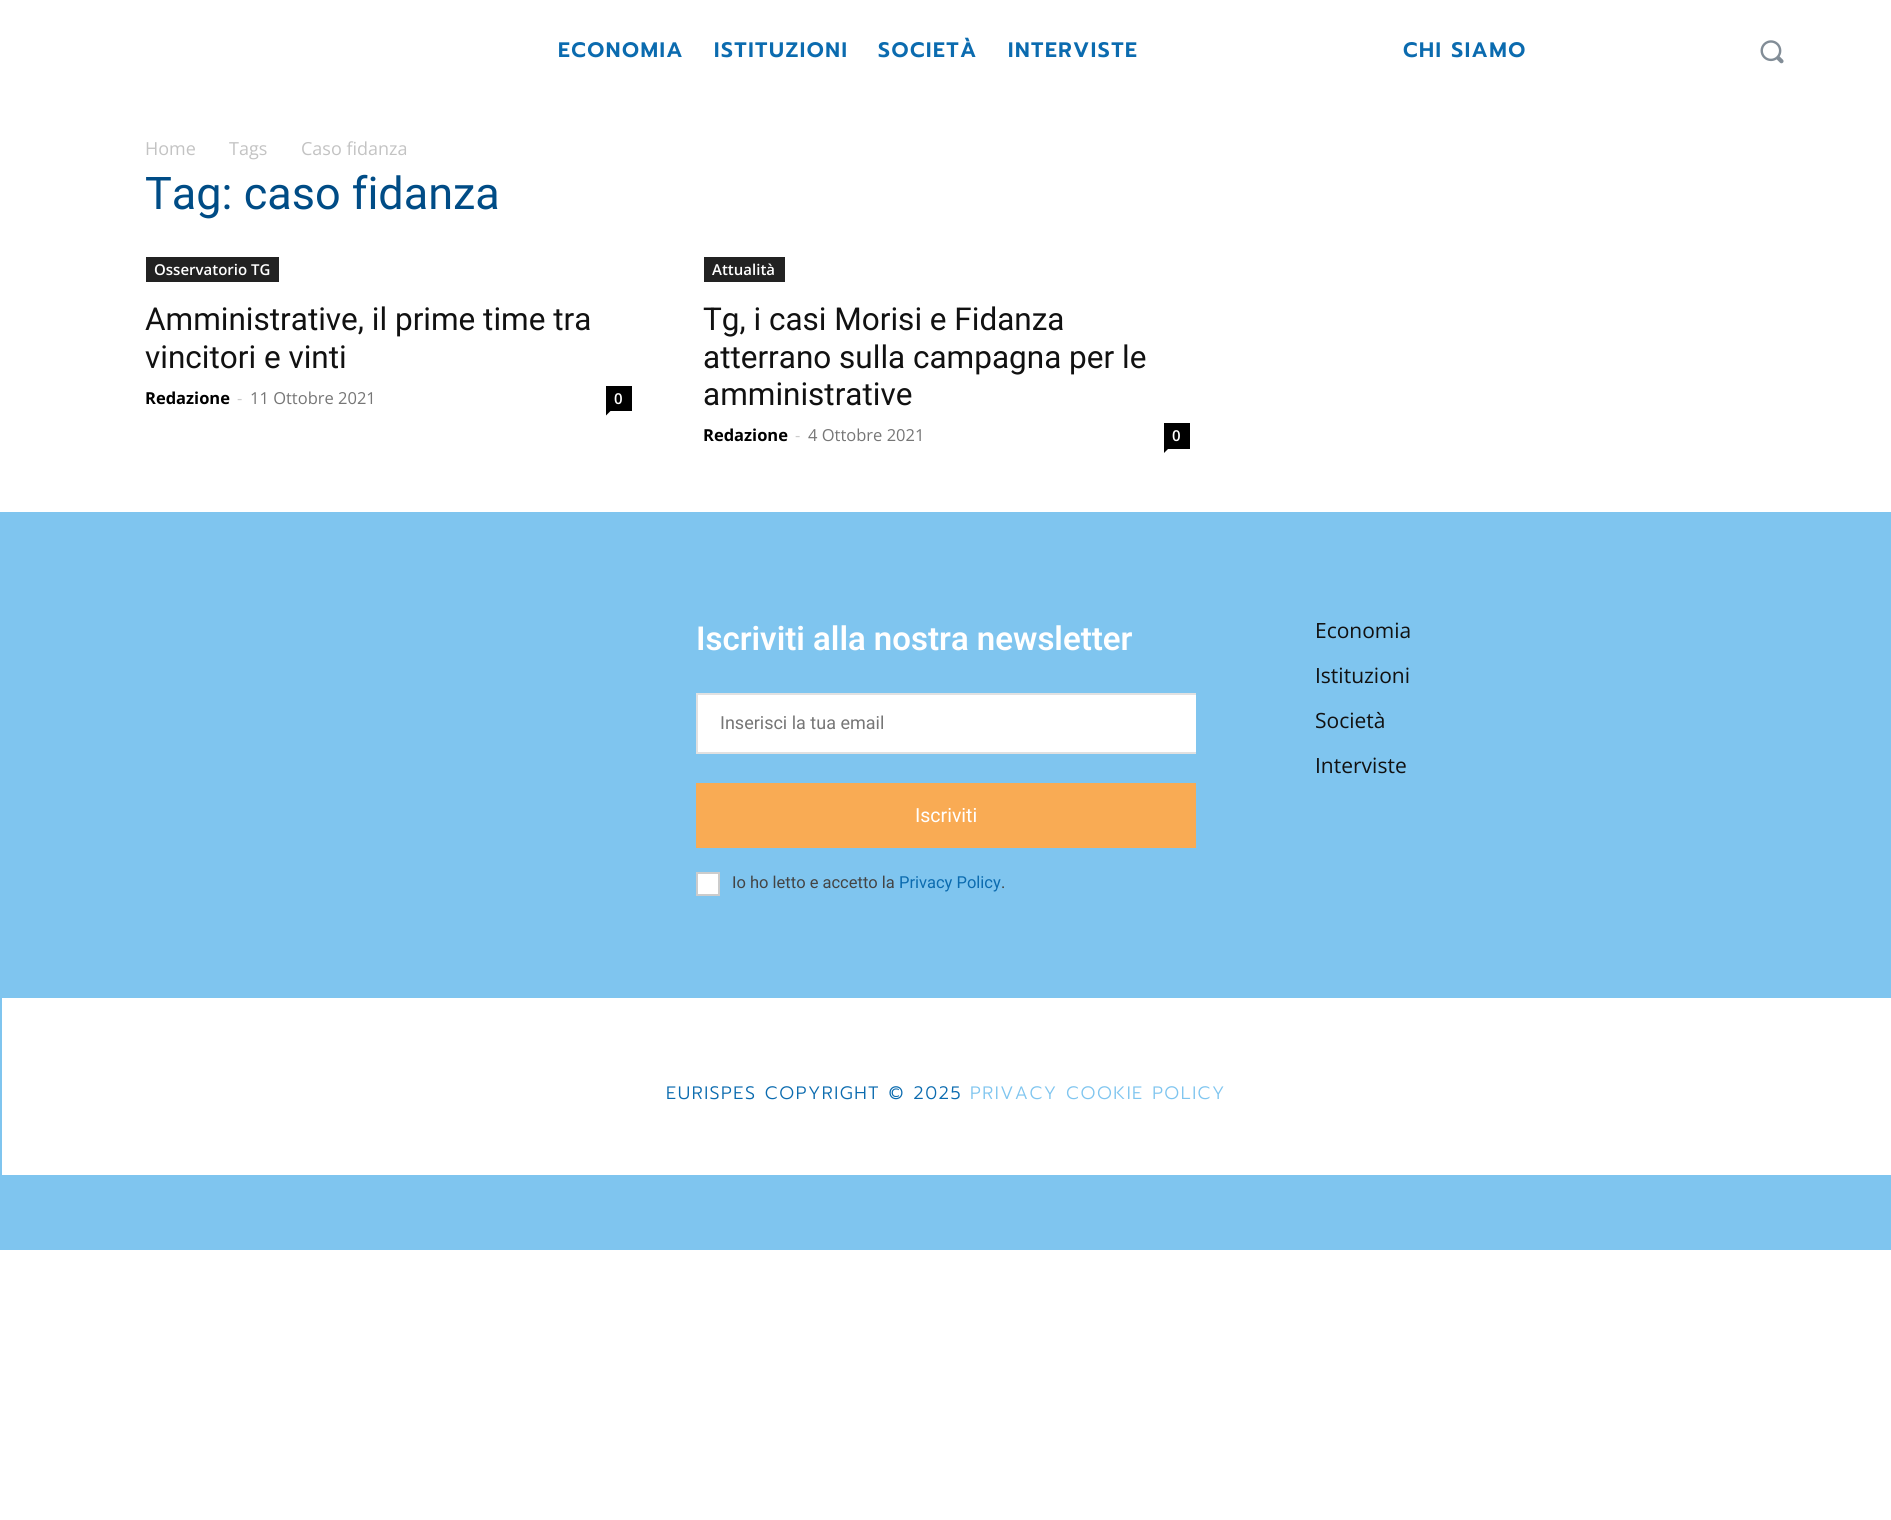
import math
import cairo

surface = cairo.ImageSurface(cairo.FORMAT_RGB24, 1891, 1520)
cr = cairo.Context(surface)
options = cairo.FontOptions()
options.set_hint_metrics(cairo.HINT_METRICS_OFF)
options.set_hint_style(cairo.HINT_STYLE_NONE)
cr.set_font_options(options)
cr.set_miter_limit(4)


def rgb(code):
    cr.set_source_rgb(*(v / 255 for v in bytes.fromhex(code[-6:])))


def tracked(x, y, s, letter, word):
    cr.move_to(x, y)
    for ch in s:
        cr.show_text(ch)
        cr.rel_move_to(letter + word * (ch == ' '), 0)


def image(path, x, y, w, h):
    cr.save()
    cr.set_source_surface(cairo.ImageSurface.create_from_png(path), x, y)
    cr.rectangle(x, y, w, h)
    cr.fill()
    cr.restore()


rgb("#ffffff")
cr.paint()
image("img/1.png", 1760, 40, 24, 24)
rgb("#222222")
cr.rectangle(146, 257, 133, 25)
cr.fill()
rgb("#000000")
cr.rectangle(606, 386, 26, 25)
cr.fill()
cr.new_path()
cr.move_to(606, 411)
cr.line_to(610.5, 411)
cr.line_to(606, 415.5)
cr.close_path()
cr.fill()
rgb("#222222")
cr.rectangle(704, 257, 81, 25)
cr.fill()
rgb("#000000")
cr.rectangle(1164, 423, 26, 26)
cr.fill()
cr.new_path()
cr.move_to(1164, 448.5)
cr.line_to(1168.5, 448.5)
cr.line_to(1164, 453)
cr.close_path()
cr.fill()
for x, y, w, h, color in [
    (0, 512, 1891, 738, "#7fc5ef"),
    (698, 695, 498, 57, "#ffffff"),
    (696, 693, 500, 2, "#e1e1e1"),
    (696, 752, 500, 2, "#e1e1e1"),
    (696, 693, 2, 60, "#e1e1e1"),
    (696, 783, 500, 65, "#f9ab54"),
]:
    rgb(color)
    cr.rectangle(x, y, w, h)
    cr.fill()
rgb("#ffffff")
cr.rectangle(697, 873, 22, 22)
cr.fill_preserve()
rgb("#cccccc")
cr.stroke()
rgb("#ffffff")
cr.rectangle(2, 998, 1889, 177)
cr.fill()
cr.select_font_face("Prompt SemiBold")
cr.set_font_size(21)
rgb("#0b6baf")
for x, y, s in [
    (558, 57, "ECONOMIA"),
    (714, 57, "ISTITUZIONI"),
    (878, 57, "SOCIETÀ"),
    (1008, 57, "INTERVISTE"),
    (1403, 57, "CHI SIAMO"),
]:
    tracked(x, y, s, 1.5, 0)
cr.select_font_face("Open Sans")
cr.set_font_size(18)
rgb("#c3c3c3")
for x, y, s in [
    (145, 155, "Home"),
    (229, 155, "Tags"),
    (301, 155, "Caso fidanza"),
]:
    cr.move_to(x, y)
    cr.show_text(s)
cr.select_font_face("Roboto")
cr.set_font_size(45)
rgb("#004c86")
cr.move_to(145, 209)
cr.show_text("Tag: caso fidanza")
cr.select_font_face("Open Sans SemiBold")
cr.set_font_size(15)
rgb("#ffffff")
cr.move_to(154, 275)
cr.show_text("Osservatorio TG")
cr.select_font_face("Roboto")
cr.set_font_size(31.5)
rgb("#111111")
cr.move_to(145, 330)
cr.show_text("Amministrative, il prime time tra")
cr.move_to(145, 368)
cr.show_text("vincitori e vinti")
cr.select_font_face("Open Sans", cairo.FONT_SLANT_NORMAL, cairo.FONT_WEIGHT_BOLD)
cr.set_font_size(16.5)
rgb("#000000")
cr.move_to(145, 404)
cr.show_text("Redazione")
cr.select_font_face("Open Sans")
rgb("#cccccc")
cr.move_to(237, 404)
cr.show_text("-")
rgb("#767676")
cr.move_to(250, 404)
cr.show_text("11 Ottobre 2021")
cr.select_font_face("Open Sans SemiBold")
cr.set_font_size(15)
rgb("#ffffff")
cr.move_to(614, 404)
cr.show_text("0")
cr.move_to(712, 275)
cr.show_text("Attualità")
cr.select_font_face("Roboto")
cr.set_font_size(31.5)
rgb("#111111")
for x, y, s in [
    (703, 330, "Tg, i casi Morisi e Fidanza"),
    (703, 368, "atterrano sulla campagna per le"),
    (703, 405, "amministrative"),
]:
    cr.move_to(x, y)
    cr.show_text(s)
cr.select_font_face("Open Sans", cairo.FONT_SLANT_NORMAL, cairo.FONT_WEIGHT_BOLD)
cr.set_font_size(16.5)
rgb("#000000")
cr.move_to(703, 441)
cr.show_text("Redazione")
cr.select_font_face("Open Sans")
rgb("#cccccc")
cr.move_to(795, 441)
cr.show_text("-")
rgb("#767676")
cr.move_to(808, 441)
cr.show_text("4 Ottobre 2021")
cr.select_font_face("Open Sans SemiBold")
cr.set_font_size(15)
rgb("#ffffff")
cr.move_to(1172, 441)
cr.show_text("0")
cr.select_font_face("Roboto SemiBold")
cr.set_font_size(33)
cr.move_to(696, 650)
cr.show_text("Iscriviti alla nostra newsletter")
cr.select_font_face("Roboto")
cr.set_font_size(18)
rgb("#767676")
cr.move_to(720, 729)
cr.show_text("Inserisci la tua email")
cr.set_font_size(19.5)
rgb("#ffffff")
cr.move_to(915, 822)
cr.show_text("Iscriviti")
cr.set_font_size(16.5)
rgb("#444444")
cr.move_to(732, 888)
cr.show_text("Io ho letto e accetto la")
rgb("#0b6baf")
cr.move_to(899, 888)
cr.show_text("Privacy Policy")
rgb("#444444")
cr.move_to(1001, 888)
cr.show_text(".")
cr.select_font_face("Open Sans")
cr.set_font_size(21)
rgb("#111111")
for x, y, s in [
    (1315, 638, "Economia"),
    (1315, 683, "Istituzioni"),
    (1315, 728, "Società"),
    (1315, 773, "Interviste"),
]:
    cr.move_to(x, y)
    cr.show_text(s)
cr.select_font_face("Prompt Light")
cr.set_font_size(18)
rgb("#0b6baf")
tracked(666, 1099, "EURISPES COPYRIGHT © 2025", 1.5, 0)
rgb("#7fc5ef")
tracked(970, 1099, "PRIVACY COOKIE POLICY", 1.5, 0)
surface.write_to_png("page.png")
